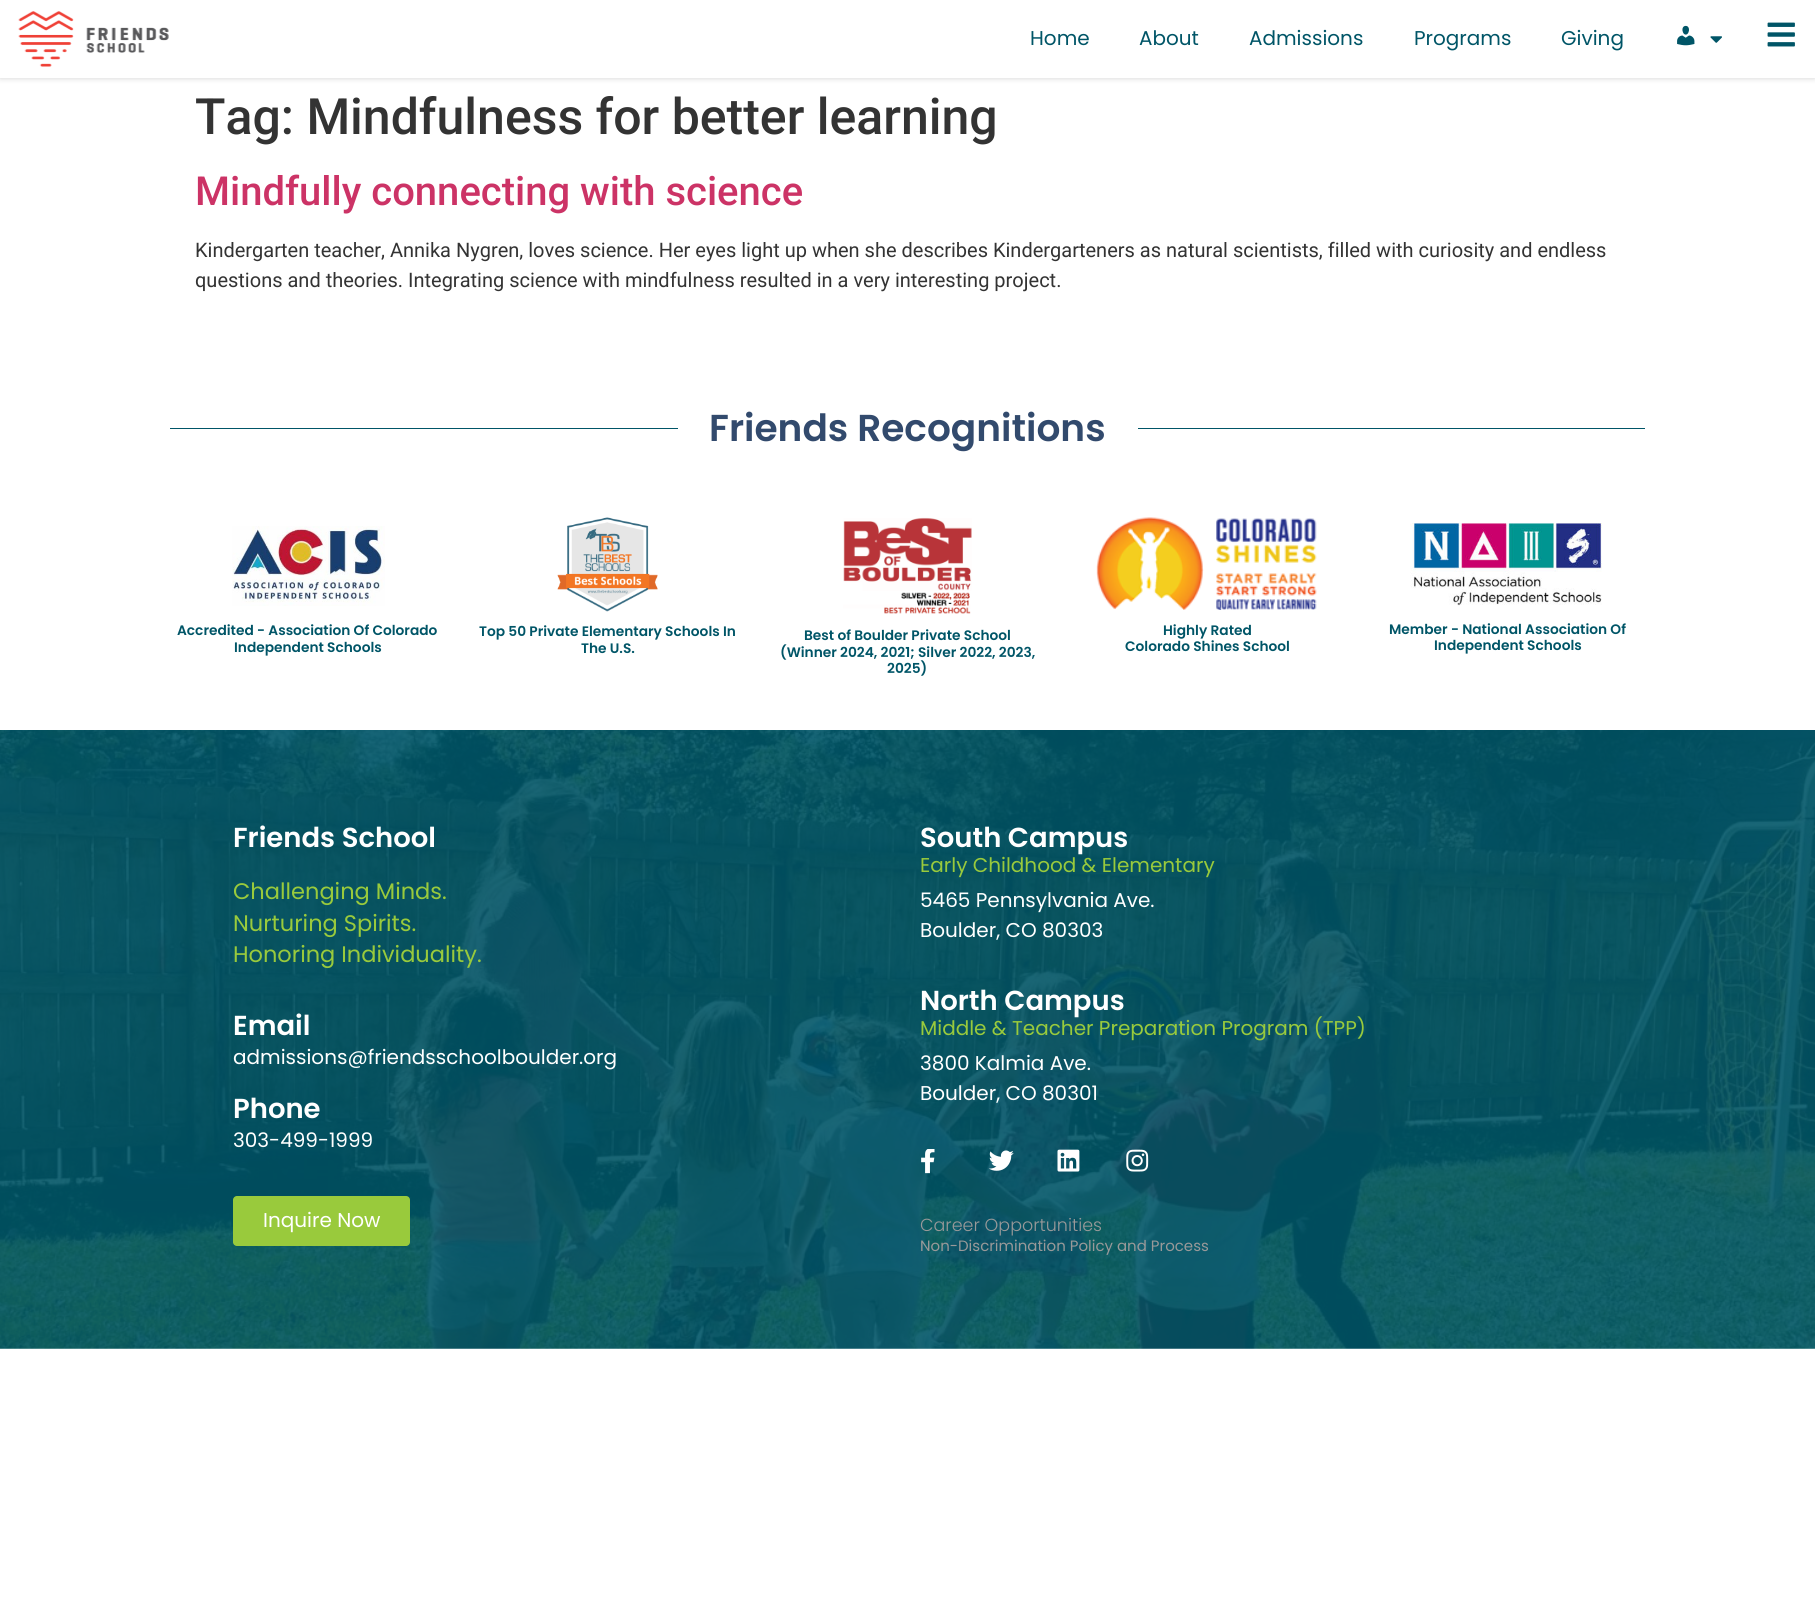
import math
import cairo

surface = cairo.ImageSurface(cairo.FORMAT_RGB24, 1815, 1624)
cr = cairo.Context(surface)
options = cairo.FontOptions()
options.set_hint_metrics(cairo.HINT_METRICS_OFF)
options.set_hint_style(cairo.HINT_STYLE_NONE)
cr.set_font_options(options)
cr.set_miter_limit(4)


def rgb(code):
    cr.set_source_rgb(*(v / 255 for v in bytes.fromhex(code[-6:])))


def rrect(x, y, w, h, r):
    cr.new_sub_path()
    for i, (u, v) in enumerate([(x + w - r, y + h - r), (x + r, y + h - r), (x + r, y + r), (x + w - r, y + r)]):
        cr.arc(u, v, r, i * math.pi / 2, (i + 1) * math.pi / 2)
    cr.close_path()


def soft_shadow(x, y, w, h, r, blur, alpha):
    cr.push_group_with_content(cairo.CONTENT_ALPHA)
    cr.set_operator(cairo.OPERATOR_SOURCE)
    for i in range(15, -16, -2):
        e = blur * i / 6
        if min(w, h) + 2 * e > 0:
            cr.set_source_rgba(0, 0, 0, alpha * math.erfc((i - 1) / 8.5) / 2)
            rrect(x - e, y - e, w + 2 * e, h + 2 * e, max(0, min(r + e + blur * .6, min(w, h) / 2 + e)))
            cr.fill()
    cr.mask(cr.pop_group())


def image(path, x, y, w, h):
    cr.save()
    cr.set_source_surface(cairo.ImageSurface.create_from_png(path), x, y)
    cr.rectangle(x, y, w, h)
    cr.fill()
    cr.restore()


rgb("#ffffff")
cr.paint()
rgb("#818181")
soft_shadow(0, 0, 1815, 78, 0, 3, 0.37)
rgb("#ffffff")
cr.rectangle(0, 0, 1815, 78)
cr.fill()
image("img/1.png", 18, 11, 151, 56)
image("img/2.png", 1677, 25, 18, 21)
image("img/3.png", 1710, 36, 12, 7)
image("img/4.png", 1767, 22, 28, 25)
rgb("#005567")
cr.rectangle(170, 428, 508, 1)
cr.fill()
cr.rectangle(1138, 428, 507, 1)
cr.fill()
image("img/5.png", 232, 526, 153, 80)
image("img/6.png", 557, 517, 101, 95)
image("img/7.png", 843, 517, 129, 97)
image("img/8.png", 1096, 517, 221, 93)
image("img/9.png", 1410, 523, 192, 83)
image("img/10.png", 0, 730, 1815, 619)
rgb("#99ca3c")
rrect(233, 1196, 177, 50, 4)
cr.fill()
image("img/11.png", 921, 1149, 14, 25)
image("img/12.png", 988, 1150, 26, 21)
image("img/13.png", 1057, 1149, 23, 23)
image("img/14.png", 1126, 1149, 23, 23)
cr.select_font_face("Poppins")
cr.set_font_size(20)
rgb("#005567")
for x, y, s in [
    (1030, 45, "Home"),
    (1139, 45, "About"),
    (1249, 45, "Admissions"),
    (1414, 45, "Programs"),
    (1561, 45, "Giving"),
]:
    cr.move_to(x, y)
    cr.show_text(s)
cr.select_font_face("Roboto Medium")
cr.set_font_size(50)
rgb("#333333")
cr.move_to(195, 134)
cr.show_text("Tag: Mindfulness for better learning")
cr.set_font_size(40)
rgb("#cc3366")
cr.move_to(195, 205)
cr.show_text("Mindfully connecting with science")
cr.select_font_face("Roboto")
cr.set_font_size(20)
rgb("#333333")
cr.move_to(195, 257)
cr.show_text("Kindergarten teacher, Annika Nygren, loves science. Her eyes light up when she describes Kindergarteners as natural scientists, filled with curiosity and endless")
cr.move_to(195, 287)
cr.show_text("questions and theories. Integrating science with mindfulness resulted in a very interesting project.")
cr.select_font_face("Poppins SemiBold")
cr.set_font_size(37.5)
rgb("#324a6d")
cr.move_to(709, 441)
cr.show_text("Friends Recognitions")
cr.set_font_size(13.75)
rgb("#005567")
for x, y, s in [
    (177, 635, "Accredited - Association Of Colorado"),
    (234, 652, "Independent Schools"),
    (479, 636, "Top 50 Private Elementary Schools In"),
    (581, 653, "The U.S."),
    (804, 640, "Best of Boulder Private School"),
    (780, 657, "(Winner 2024, 2021; Silver 2022, 2023,"),
    (887, 673, "2025)"),
    (1163, 635, "Highly Rated"),
    (1125, 651, "Colorado Shines School"),
    (1389, 634, "Member - National Association Of"),
    (1434, 650, "Independent Schools"),
]:
    cr.move_to(x, y)
    cr.show_text(s)
cr.set_font_size(27.5)
rgb("#ffffff")
cr.move_to(233, 847)
cr.show_text("Friends School")
cr.select_font_face("Poppins")
cr.set_font_size(22.5)
rgb("#99ca3c")
for x, y, s in [
    (233, 899, "Challenging Minds."),
    (233, 931, "Nurturing Spirits."),
    (233, 962, "Honoring Individuality."),
]:
    cr.move_to(x, y)
    cr.show_text(s)
cr.select_font_face("Poppins SemiBold")
cr.set_font_size(27.5)
rgb("#ffffff")
cr.move_to(233, 1035)
cr.show_text("Email")
cr.select_font_face("Poppins")
cr.set_font_size(20)
cr.move_to(233, 1064)
cr.show_text("admissions@friendsschoolboulder.org")
cr.select_font_face("Poppins SemiBold")
cr.set_font_size(27.5)
cr.move_to(233, 1118)
cr.show_text("Phone")
cr.select_font_face("Poppins")
cr.set_font_size(20)
cr.move_to(233, 1147)
cr.show_text("303-499-1999")
cr.move_to(263, 1227)
cr.show_text("Inquire Now")
cr.select_font_face("Poppins SemiBold")
cr.set_font_size(27.5)
cr.move_to(920, 847)
cr.show_text("South Campus")
cr.select_font_face("Poppins")
cr.set_font_size(20)
rgb("#99ca3c")
cr.move_to(920, 872)
cr.show_text("Early Childhood & Elementary")
rgb("#ffffff")
cr.move_to(920, 907)
cr.show_text("5465 Pennsylvania Ave.")
cr.move_to(920, 937)
cr.show_text("Boulder, CO 80303")
cr.select_font_face("Poppins SemiBold")
cr.set_font_size(27.5)
cr.move_to(920, 1010)
cr.show_text("North Campus")
cr.select_font_face("Poppins")
cr.set_font_size(20)
rgb("#99ca3c")
cr.move_to(920, 1035)
cr.show_text("Middle & Teacher Preparation Program (TPP)")
rgb("#ffffff")
cr.move_to(920, 1070)
cr.show_text("3800 Kalmia Ave.")
cr.move_to(920, 1100)
cr.show_text("Boulder, CO 80301")
cr.select_font_face("Poppins Light")
cr.set_font_size(17.5)
rgb("#999999")
cr.move_to(920, 1231)
cr.show_text("Career Opportunities")
cr.select_font_face("Poppins")
cr.set_font_size(15)
cr.move_to(920, 1251)
cr.show_text("Non-Discrimination Policy and Process")
surface.write_to_png("page.png")
